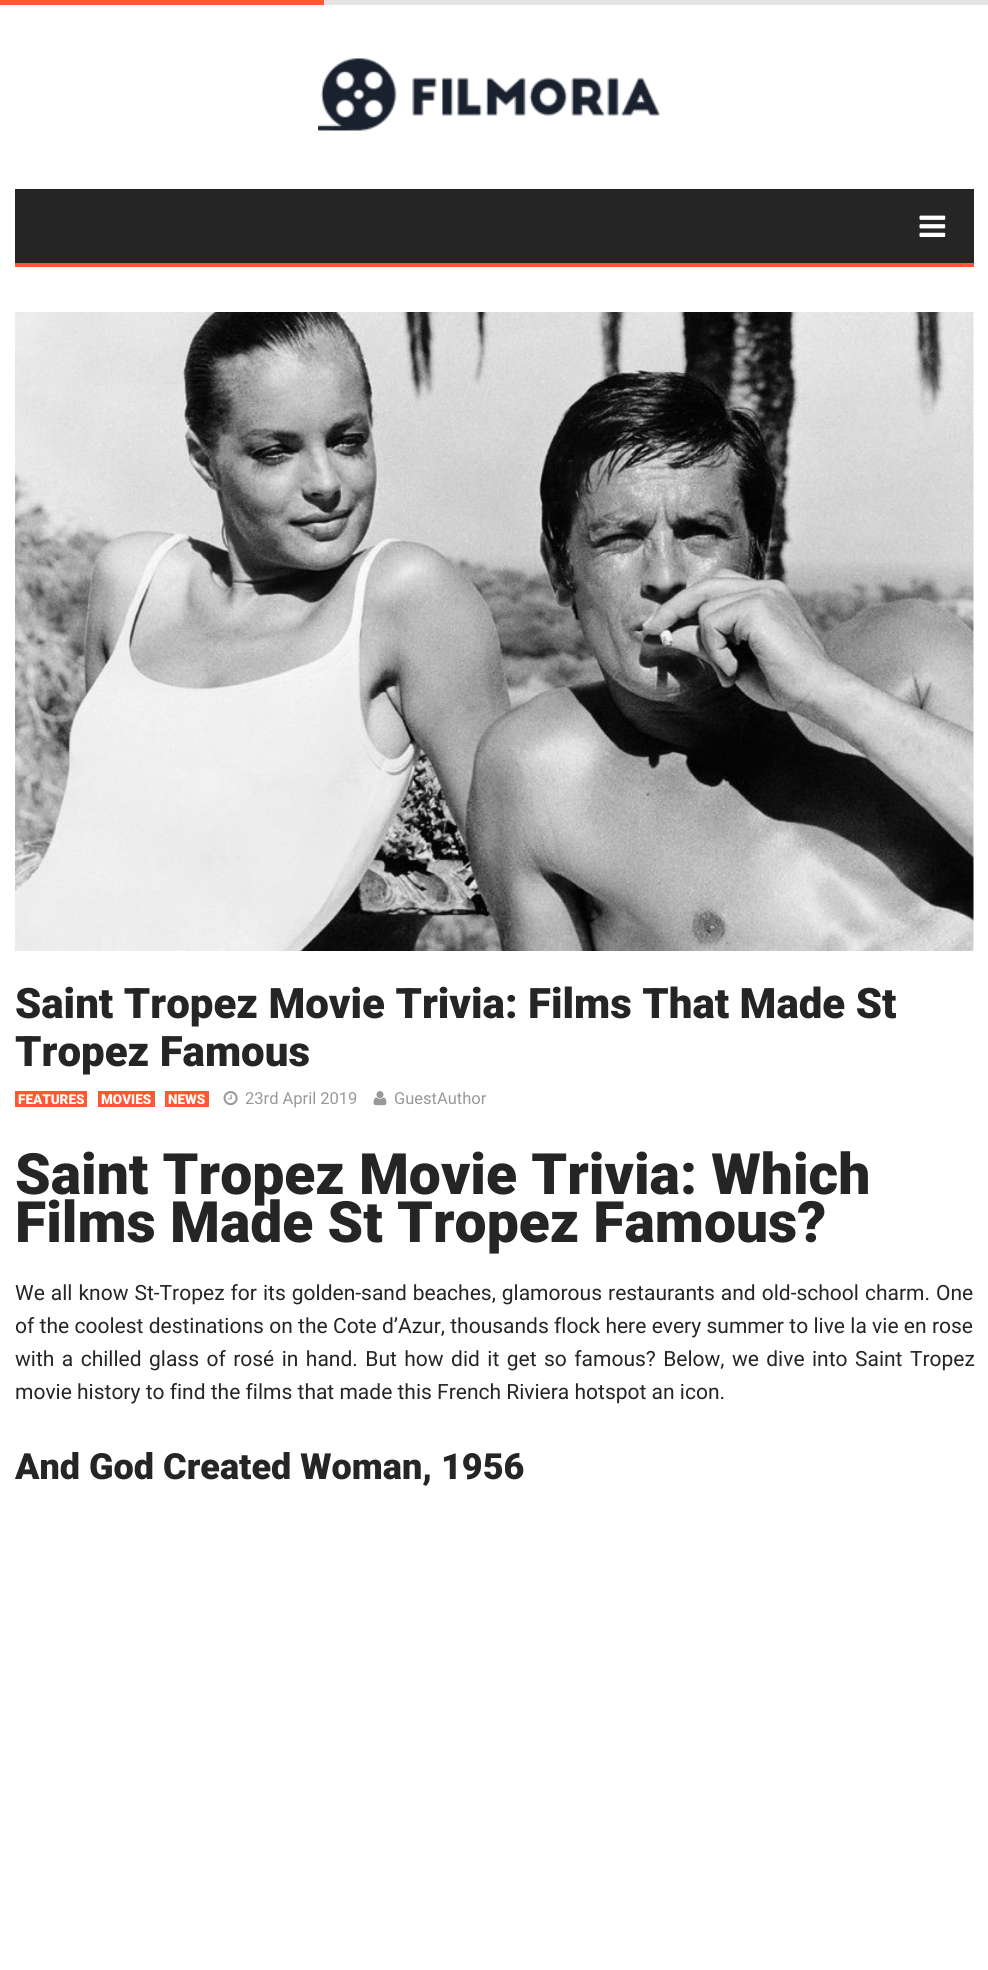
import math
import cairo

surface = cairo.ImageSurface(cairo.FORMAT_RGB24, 988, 1970)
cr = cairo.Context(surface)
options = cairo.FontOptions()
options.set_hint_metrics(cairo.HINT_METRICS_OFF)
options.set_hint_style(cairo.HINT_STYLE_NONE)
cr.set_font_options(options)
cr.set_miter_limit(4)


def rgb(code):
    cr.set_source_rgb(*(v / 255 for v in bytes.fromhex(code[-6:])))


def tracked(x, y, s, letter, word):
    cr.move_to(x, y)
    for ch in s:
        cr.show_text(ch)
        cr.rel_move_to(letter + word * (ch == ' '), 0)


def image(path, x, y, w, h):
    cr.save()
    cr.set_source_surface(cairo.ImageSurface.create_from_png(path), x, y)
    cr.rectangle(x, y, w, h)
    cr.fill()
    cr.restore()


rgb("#ffffff")
cr.paint()
rgb("#e4e4e4")
cr.rectangle(324, 0, 664, 5)
cr.fill()
rgb("#ff5732")
cr.rectangle(0, 0, 324, 5)
cr.fill()
image("img/1.png", 318, 58, 343, 73)
cr.new_path()
cr.move_to(15, 262)
cr.line_to(15, 267)
cr.line_to(974, 267)
cr.line_to(974, 194)
cr.line_to(974, 262)
cr.close_path()
cr.fill()
rgb("#252525")
cr.rectangle(15, 189, 959, 74)
cr.fill()
image("img/2.png", 919, 215, 27, 22)
image("img/3.png", 15, 312, 959, 639)
for x, y, w, h, color in [
    (15, 1091, 72, 16, "#ff5732"),
    (98, 1091, 57, 16, "#ff5732"),
    (165, 1091, 44, 16, "#ff5732"),
]:
    rgb(color)
    cr.rectangle(x, y, w, h)
    cr.fill()
image("img/4.png", 223, 1091, 15, 15)
image("img/5.png", 373, 1091, 14, 15)
cr.select_font_face("Roboto Black")
cr.set_font_size(42)
rgb("#252525")
cr.move_to(15, 1018)
cr.show_text("Saint Tropez Movie Trivia: Films That Made St")
cr.move_to(15, 1066)
cr.show_text("Tropez Famous")
cr.set_font_size(13.5)
rgb("#ffffff")
for x, y, s in [
    (18, 1104, "FEATURES"),
    (101, 1104, "MOVIES"),
    (168, 1104, "NEWS"),
]:
    cr.move_to(x, y)
    cr.show_text(s)
cr.select_font_face("Roboto")
cr.set_font_size(16.5)
rgb("#999999")
cr.move_to(245, 1104)
cr.show_text("23rd April 2019")
cr.move_to(394, 1104)
cr.show_text("GuestAuthor")
cr.select_font_face("Roboto Black")
cr.set_font_size(57)
rgb("#252525")
cr.move_to(15, 1194)
cr.show_text("Saint Tropez Movie Trivia: Which")
cr.move_to(15, 1242)
cr.show_text("Films Made St Tropez Famous?")
cr.select_font_face("Roboto")
cr.set_font_size(21)
tracked(15, 1300, "We all know St-Tropez for its golden-sand beaches, glamorous restaurants and old-school charm. One", 0, 0.8)
tracked(15, 1333, "of the coolest destinations on the Cote d’Azur, thousands flock here every summer to live la vie en rose", 0, 0.1)
tracked(15, 1366, "with a chilled glass of rosé in hand. But how did it get so famous? Below, we dive into Saint Tropez", 0, 2.25)
cr.move_to(15, 1399)
cr.show_text("movie history to find the films that made this French Riviera hotspot an icon.")
cr.select_font_face("Roboto Black")
cr.set_font_size(36)
cr.move_to(15, 1479)
cr.show_text("And God Created Woman, 1956")
surface.write_to_png("page.png")
